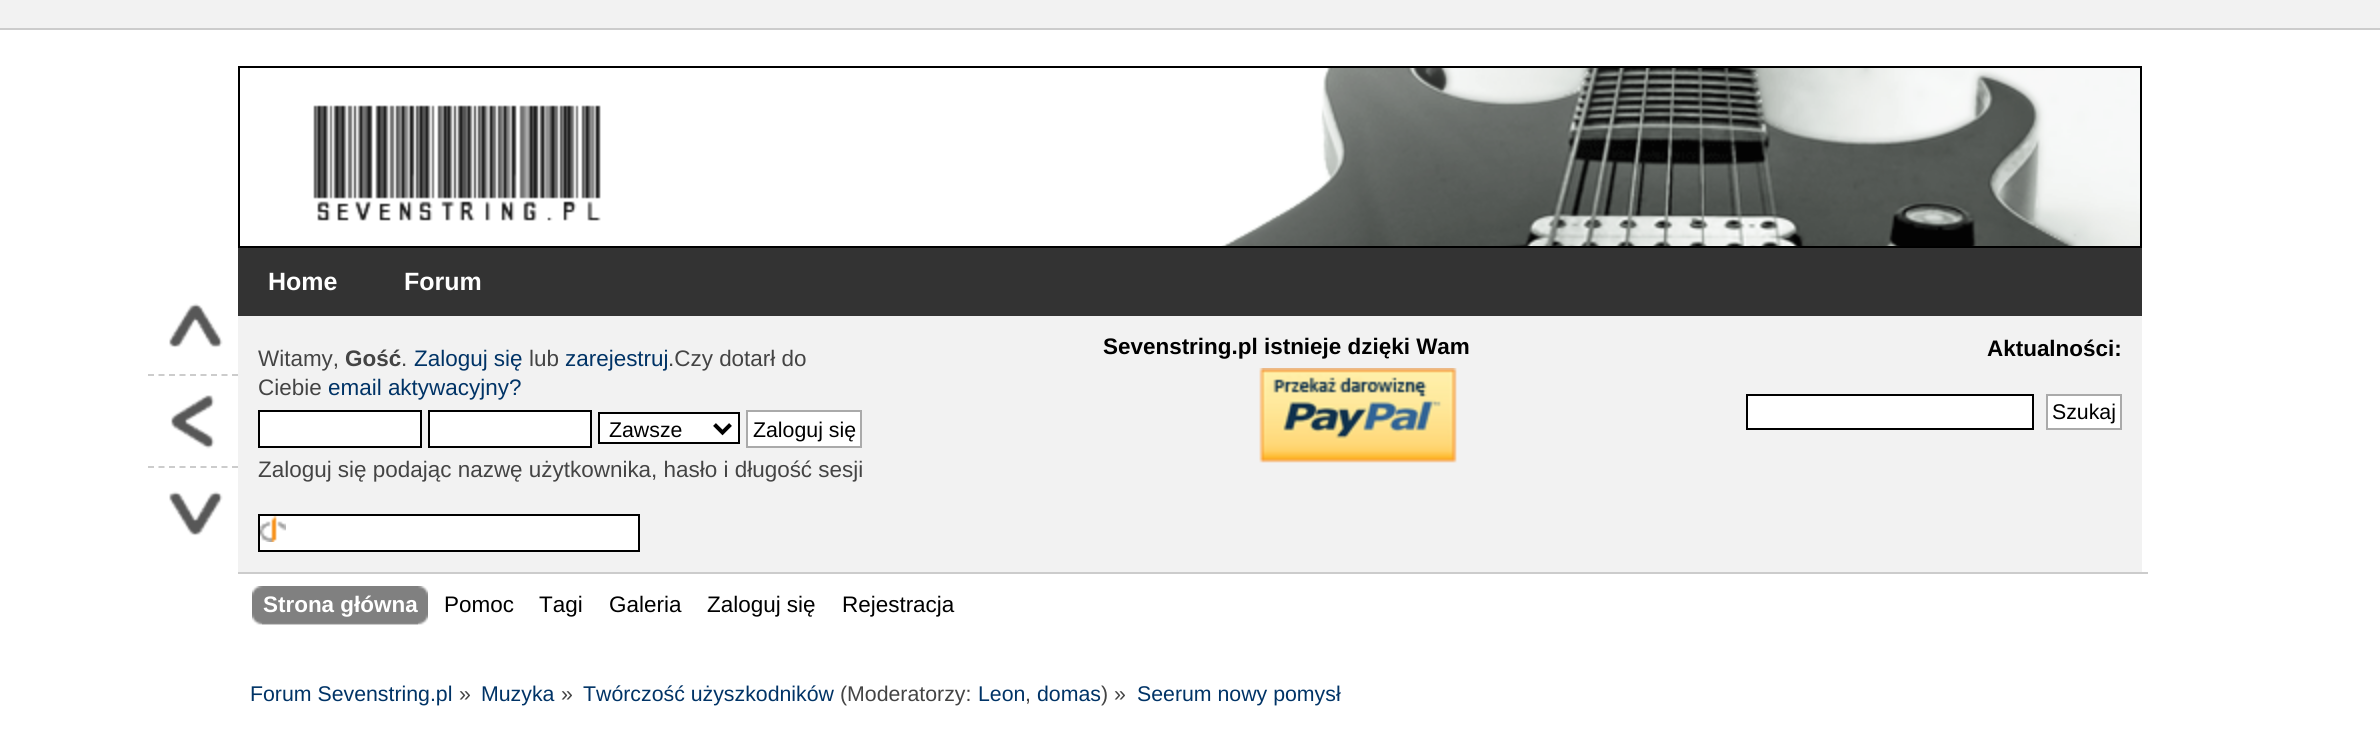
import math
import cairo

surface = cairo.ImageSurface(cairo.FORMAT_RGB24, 2380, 747)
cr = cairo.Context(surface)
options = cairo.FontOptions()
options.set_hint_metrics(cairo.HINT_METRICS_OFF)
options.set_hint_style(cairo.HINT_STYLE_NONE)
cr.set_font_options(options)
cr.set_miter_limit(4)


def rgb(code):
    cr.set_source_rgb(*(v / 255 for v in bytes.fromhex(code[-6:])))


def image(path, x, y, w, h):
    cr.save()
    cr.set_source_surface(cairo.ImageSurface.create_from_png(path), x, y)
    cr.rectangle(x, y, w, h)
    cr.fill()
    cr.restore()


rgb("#ffffff")
cr.paint()
rgb("#f2f2f2")
cr.rectangle(0, 0, 2380, 28)
cr.fill()
rgb("#cccccc")
cr.rectangle(0, 28, 2380, 2)
cr.fill()
image("img/1.png", 1221, 68, 919, 178)
cr.rectangle(239, 67, 1902, 180)
rgb("#000000")
cr.stroke()
image("img/2.png", 313, 105, 288, 116)
rgb("#333333")
cr.rectangle(238, 248, 1904, 68)
cr.fill()
rgb("#f2f2f2")
cr.rectangle(238, 316, 1904, 256)
cr.fill()
rgb("#ffffff")
cr.rectangle(259, 411, 162, 36)
cr.fill_preserve()
rgb("#000000")
cr.stroke()
rgb("#ffffff")
cr.rectangle(429, 411, 162, 36)
cr.fill_preserve()
rgb("#000000")
cr.stroke()
rgb("#ffffff")
cr.rectangle(599, 413, 140, 30)
cr.fill_preserve()
rgb("#000000")
cr.stroke()
cr.new_path()
cr.move_to(714.5, 424.5)
cr.line_to(722.5, 432.5)
cr.line_to(730.5, 424.5)
cr.set_line_width(4)
cr.stroke()
rgb("#ffffff")
cr.rectangle(747, 411, 114, 36)
cr.fill_preserve()
rgb("#aaaaaa")
cr.set_line_width(2)
cr.stroke()
rgb("#ffffff")
cr.rectangle(260, 516, 378, 34)
cr.fill()
image("img/3.png", 260, 516, 26, 26)
cr.rectangle(259, 515, 380, 36)
rgb("#000000")
cr.stroke()
image("img/4.png", 1259, 368, 198, 95)
rgb("#ffffff")
cr.rectangle(1747, 395, 286, 34)
cr.fill_preserve()
rgb("#000000")
cr.stroke()
rgb("#ffffff")
cr.rectangle(2047, 395, 74, 34)
cr.fill_preserve()
rgb("#aaaaaa")
cr.stroke()
rgb("#cccccc")
cr.rectangle(238, 572, 1910, 2)
cr.fill()
image("img/5.png", 262, 586, 166, 39)
image("img/6.png", 252, 586, 166, 39)
image("img/7.png", 169, 303, 54, 45)
cr.new_path()
cr.move_to(148, 375)
cr.line_to(238, 375)
cr.set_dash([6, 4.5])
cr.stroke()
image("img/8.png", 170, 395, 45, 54)
cr.new_path()
cr.move_to(148, 467)
cr.line_to(238, 467)
cr.stroke()
image("img/9.png", 169, 491, 54, 45)
cr.select_font_face("Liberation Sans", cairo.FONT_SLANT_NORMAL, cairo.FONT_WEIGHT_BOLD)
cr.set_font_size(25)
rgb("#ffffff")
cr.move_to(268, 290)
cr.show_text("Home")
cr.move_to(404, 290)
cr.show_text("Forum")
cr.select_font_face("Liberation Sans")
cr.set_font_size(22.45)
rgb("#444444")
cr.move_to(258, 366)
cr.show_text("Witamy,")
cr.select_font_face("Liberation Sans", cairo.FONT_SLANT_NORMAL, cairo.FONT_WEIGHT_BOLD)
cr.move_to(345, 366)
cr.show_text("Gość")
cr.select_font_face("Liberation Sans")
cr.move_to(401, 366)
cr.show_text(".")
rgb("#003366")
cr.move_to(414, 366)
cr.show_text("Zaloguj się")
rgb("#444444")
cr.move_to(529, 366)
cr.show_text("lub")
rgb("#003366")
cr.move_to(565, 366)
cr.show_text("zarejestruj")
rgb("#444444")
cr.move_to(668, 366)
cr.show_text(".Czy dotarł do")
cr.move_to(258, 395)
cr.show_text("Ciebie")
rgb("#003366")
cr.move_to(328, 395)
cr.show_text("email aktywacyjny?")
cr.set_font_size(21.3)
rgb("#000000")
cr.move_to(609, 437)
cr.show_text("Zawsze")
cr.move_to(753, 437)
cr.show_text("Zaloguj się")
cr.set_font_size(22.45)
rgb("#444444")
cr.move_to(258, 477)
cr.show_text("Zaloguj się podając nazwę użytkownika, hasło i długość sesji")
cr.select_font_face("Liberation Sans", cairo.FONT_SLANT_NORMAL, cairo.FONT_WEIGHT_BOLD)
rgb("#000000")
cr.move_to(1103, 354)
cr.show_text("Sevenstring.pl istnieje dzięki Wam")
cr.move_to(1987, 356)
cr.show_text("Aktualności:")
cr.select_font_face("Liberation Sans")
cr.set_font_size(21.3)
cr.move_to(2052, 419)
cr.show_text("Szukaj")
cr.select_font_face("Liberation Sans", cairo.FONT_SLANT_NORMAL, cairo.FONT_WEIGHT_BOLD)
cr.set_font_size(22.45)
rgb("#ffffff")
cr.move_to(263, 612)
cr.show_text("Strona główna")
cr.select_font_face("Liberation Sans")
rgb("#000000")
for x, y, s in [
    (444, 612, "Pomoc"),
    (539, 612, "Tagi"),
    (609, 612, "Galeria"),
    (707, 612, "Zaloguj się"),
    (842, 612, "Rejestracja"),
]:
    cr.move_to(x, y)
    cr.show_text(s)
cr.set_font_size(21.3)
rgb("#003366")
cr.move_to(250, 701)
cr.show_text("Forum Sevenstring.pl")
rgb("#444444")
cr.move_to(459, 701)
cr.show_text("»")
rgb("#003366")
cr.move_to(481, 701)
cr.show_text("Muzyka")
rgb("#444444")
cr.move_to(561, 701)
cr.show_text("»")
rgb("#003366")
cr.move_to(583, 701)
cr.show_text("Twórczość użyszkodników")
rgb("#444444")
cr.move_to(840, 701)
cr.show_text("(Moderatorzy:")
rgb("#003366")
cr.move_to(978, 701)
cr.show_text("Leon")
rgb("#444444")
cr.move_to(1025, 701)
cr.show_text(",")
rgb("#003366")
cr.move_to(1037, 701)
cr.show_text("domas")
rgb("#444444")
cr.move_to(1101, 701)
cr.show_text(") »")
rgb("#003366")
cr.move_to(1137, 701)
cr.show_text("Seerum nowy pomysł")
surface.write_to_png("page.png")
